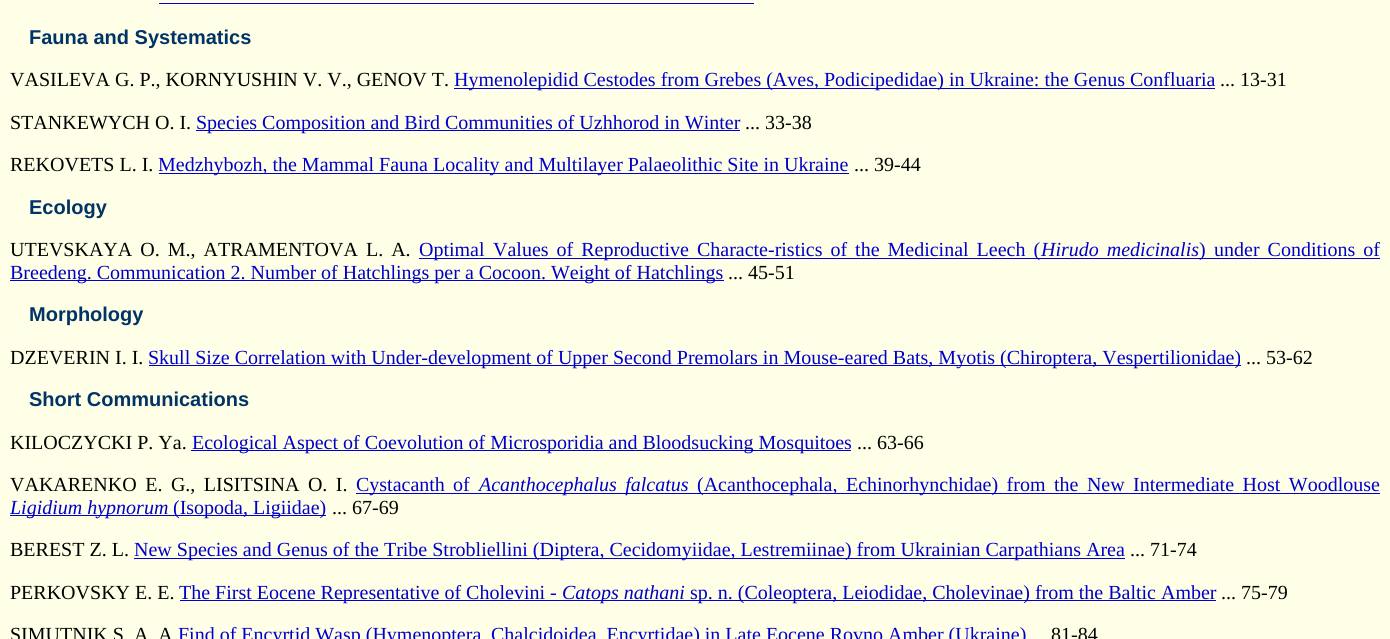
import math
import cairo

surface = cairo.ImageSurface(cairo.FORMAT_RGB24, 1390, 639)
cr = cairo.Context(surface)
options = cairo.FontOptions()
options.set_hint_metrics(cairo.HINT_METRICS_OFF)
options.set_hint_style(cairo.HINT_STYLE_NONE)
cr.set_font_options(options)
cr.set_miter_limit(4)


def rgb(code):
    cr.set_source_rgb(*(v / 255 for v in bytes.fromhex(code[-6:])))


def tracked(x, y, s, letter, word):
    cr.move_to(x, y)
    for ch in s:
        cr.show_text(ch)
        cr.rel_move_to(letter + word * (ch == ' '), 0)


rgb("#ffffe7")
cr.paint()
for x, y, w, h, color in [
    (159, 3, 595, 1, "#0000cc"),
    (454, 88, 761, 1, "#0000cc"),
    (196, 130, 544, 1, "#0000cc"),
    (159, 173, 690, 1, "#0000cc"),
    (419, 258, 961, 1, "#0000cc"),
    (10, 280, 714, 1, "#0000cc"),
    (149, 365, 1092, 1, "#0000cc"),
    (191, 450, 660, 1, "#0000cc"),
    (356, 493, 1024, 1, "#0000cc"),
    (10, 515, 316, 1, "#0000cc"),
    (134, 558, 991, 1, "#0000cc"),
    (180, 600, 1036, 1, "#0000cc"),
]:
    rgb(color)
    cr.rectangle(x, y, w, h)
    cr.fill()
cr.select_font_face("Liberation Sans", cairo.FONT_SLANT_NORMAL, cairo.FONT_WEIGHT_BOLD)
cr.set_font_size(20)
rgb("#003366")
cr.move_to(29, 44)
cr.show_text("Fauna and Systematics")
cr.select_font_face("Liberation Serif")
rgb("#000000")
cr.move_to(10, 86)
cr.show_text("VASILEVA G. P., KORNYUSHIN V. V., GENOV T.")
rgb("#0000cc")
cr.move_to(454, 86)
cr.show_text("Hymenolepidid Cestodes from Grebes (Aves, Podicipedidae) in Ukraine: the Genus Confluaria")
rgb("#000000")
cr.move_to(1220, 86)
cr.show_text("... 13-31")
cr.move_to(10, 129)
cr.show_text("STANKEWYCH O. I.")
rgb("#0000cc")
cr.move_to(196, 129)
cr.show_text("Species Composition and Bird Communities of Uzhhorod in Winter")
rgb("#000000")
cr.move_to(745, 129)
cr.show_text("... 33-38")
cr.move_to(10, 171)
cr.show_text("REKOVETS L. I.")
rgb("#0000cc")
cr.move_to(158, 171)
cr.show_text("Medzhybozh, the Mammal Fauna Locality and Multilayer Palaeolithic Site in Ukraine")
rgb("#000000")
cr.move_to(854, 171)
cr.show_text("... 39-44")
cr.select_font_face("Liberation Sans", cairo.FONT_SLANT_NORMAL, cairo.FONT_WEIGHT_BOLD)
rgb("#003366")
cr.move_to(29, 214)
cr.show_text("Ecology")
cr.select_font_face("Liberation Serif")
rgb("#000000")
tracked(10, 256, "UTEVSKAYA O. M., ATRAMENTOVA L. A.", 0, 3)
rgb("#0000cc")
cr.move_to(419, 256)
cr.show_text("Optimal")
tracked(493, 256, "Values of Reproductive Characte-ristics of the Medicinal Leech (", 0, 3)
cr.select_font_face("Liberation Serif", cairo.FONT_SLANT_ITALIC)
tracked(1041, 256, "Hirudo medicinalis", 0, 3)
cr.select_font_face("Liberation Serif")
cr.move_to(1199, 256)
cr.show_text(")")
tracked(1214, 256, "under Conditions of", 0, 3)
cr.move_to(10, 279)
cr.show_text("Breedeng. Communication 2. Number of Hatchlings per a Cocoon. Weight of Hatchlings")
rgb("#000000")
cr.move_to(728, 279)
cr.show_text("... 45-51")
cr.select_font_face("Liberation Sans", cairo.FONT_SLANT_NORMAL, cairo.FONT_WEIGHT_BOLD)
rgb("#003366")
cr.move_to(29, 321)
cr.show_text("Morphology")
cr.select_font_face("Liberation Serif")
rgb("#000000")
cr.move_to(10, 364)
cr.show_text("DZEVERIN I. I.")
rgb("#0000cc")
cr.move_to(148, 364)
cr.show_text("Skull Size Correlation with Under-development of Upper Second Premolars in Mouse-eared Bats, Myotis (Chiroptera, Vespertilionidae)")
rgb("#000000")
cr.move_to(1246, 364)
cr.show_text("... 53-62")
cr.select_font_face("Liberation Sans", cairo.FONT_SLANT_NORMAL, cairo.FONT_WEIGHT_BOLD)
rgb("#003366")
cr.move_to(29, 406)
cr.show_text("Short Communications")
cr.select_font_face("Liberation Serif")
rgb("#000000")
cr.move_to(10, 449)
cr.show_text("KILOCZYCKI P. Ya.")
rgb("#0000cc")
cr.move_to(192, 449)
cr.show_text("Ecological Aspect of Coevolution of Microsporidia and Bloodsucking Mosquitoes")
rgb("#000000")
cr.move_to(857, 449)
cr.show_text("... 63-66")
tracked(10, 491, "VAKARENKO Е. G., LISITSINA О. I.", 0, 3.5)
rgb("#0000cc")
cr.move_to(356, 491)
cr.show_text("Cystacanth")
cr.move_to(453, 491)
cr.show_text("of")
cr.select_font_face("Liberation Serif", cairo.FONT_SLANT_ITALIC)
tracked(479, 491, "Acanthocephalus falcatus", 0, 3.5)
cr.select_font_face("Liberation Serif")
tracked(697, 491, "(Acanthocephala, Echinorhynchidae) from the New", 0, 3.5)
tracked(1133, 491, "Intermediate Host Woodlouse", 0, 3.5)
cr.select_font_face("Liberation Serif", cairo.FONT_SLANT_ITALIC)
cr.move_to(10, 514)
cr.show_text("Ligidium hypnorum")
cr.select_font_face("Liberation Serif")
cr.move_to(173, 514)
cr.show_text("(Isopoda, Ligiidae)")
rgb("#000000")
cr.move_to(332, 514)
cr.show_text("... 67-69")
cr.move_to(10, 556)
cr.show_text("BEREST Z. L.")
rgb("#0000cc")
cr.move_to(134, 556)
cr.show_text("New Species and Genus of the Tribe Strobliellini (Diptera, Cecidomyiidae, Lestremiinae) from Ukrainian Carpathians Area")
rgb("#000000")
cr.move_to(1130, 556)
cr.show_text("... 71-74")
cr.move_to(10, 599)
cr.show_text("PERKOVSKY E. E.")
rgb("#0000cc")
cr.move_to(179, 599)
cr.show_text("The First Eocene Representative of Cholevini -")
cr.select_font_face("Liberation Serif", cairo.FONT_SLANT_ITALIC)
cr.move_to(562, 599)
cr.show_text("Catops nathani")
cr.select_font_face("Liberation Serif")
cr.move_to(690, 599)
cr.show_text("sp. n. (Coleoptera, Leiodidae, Cholevinae) from the Baltic Amber")
rgb("#000000")
cr.move_to(1221, 599)
cr.show_text("... 75-79")
cr.move_to(10, 641)
cr.show_text("SIMUTNIK S. A. A")
rgb("#0000cc")
cr.move_to(178, 641)
cr.show_text("Find of Encyrtid Wasp (Hymenoptera")
cr.move_to(491, 641)
cr.show_text("Chalcidoidea, Encyrtidae) in Late Eocene Rovno Amber (Ukraine)")
rgb("#000000")
cr.move_to(1051, 641)
cr.show_text("81-84")
surface.write_to_png("page.png")
